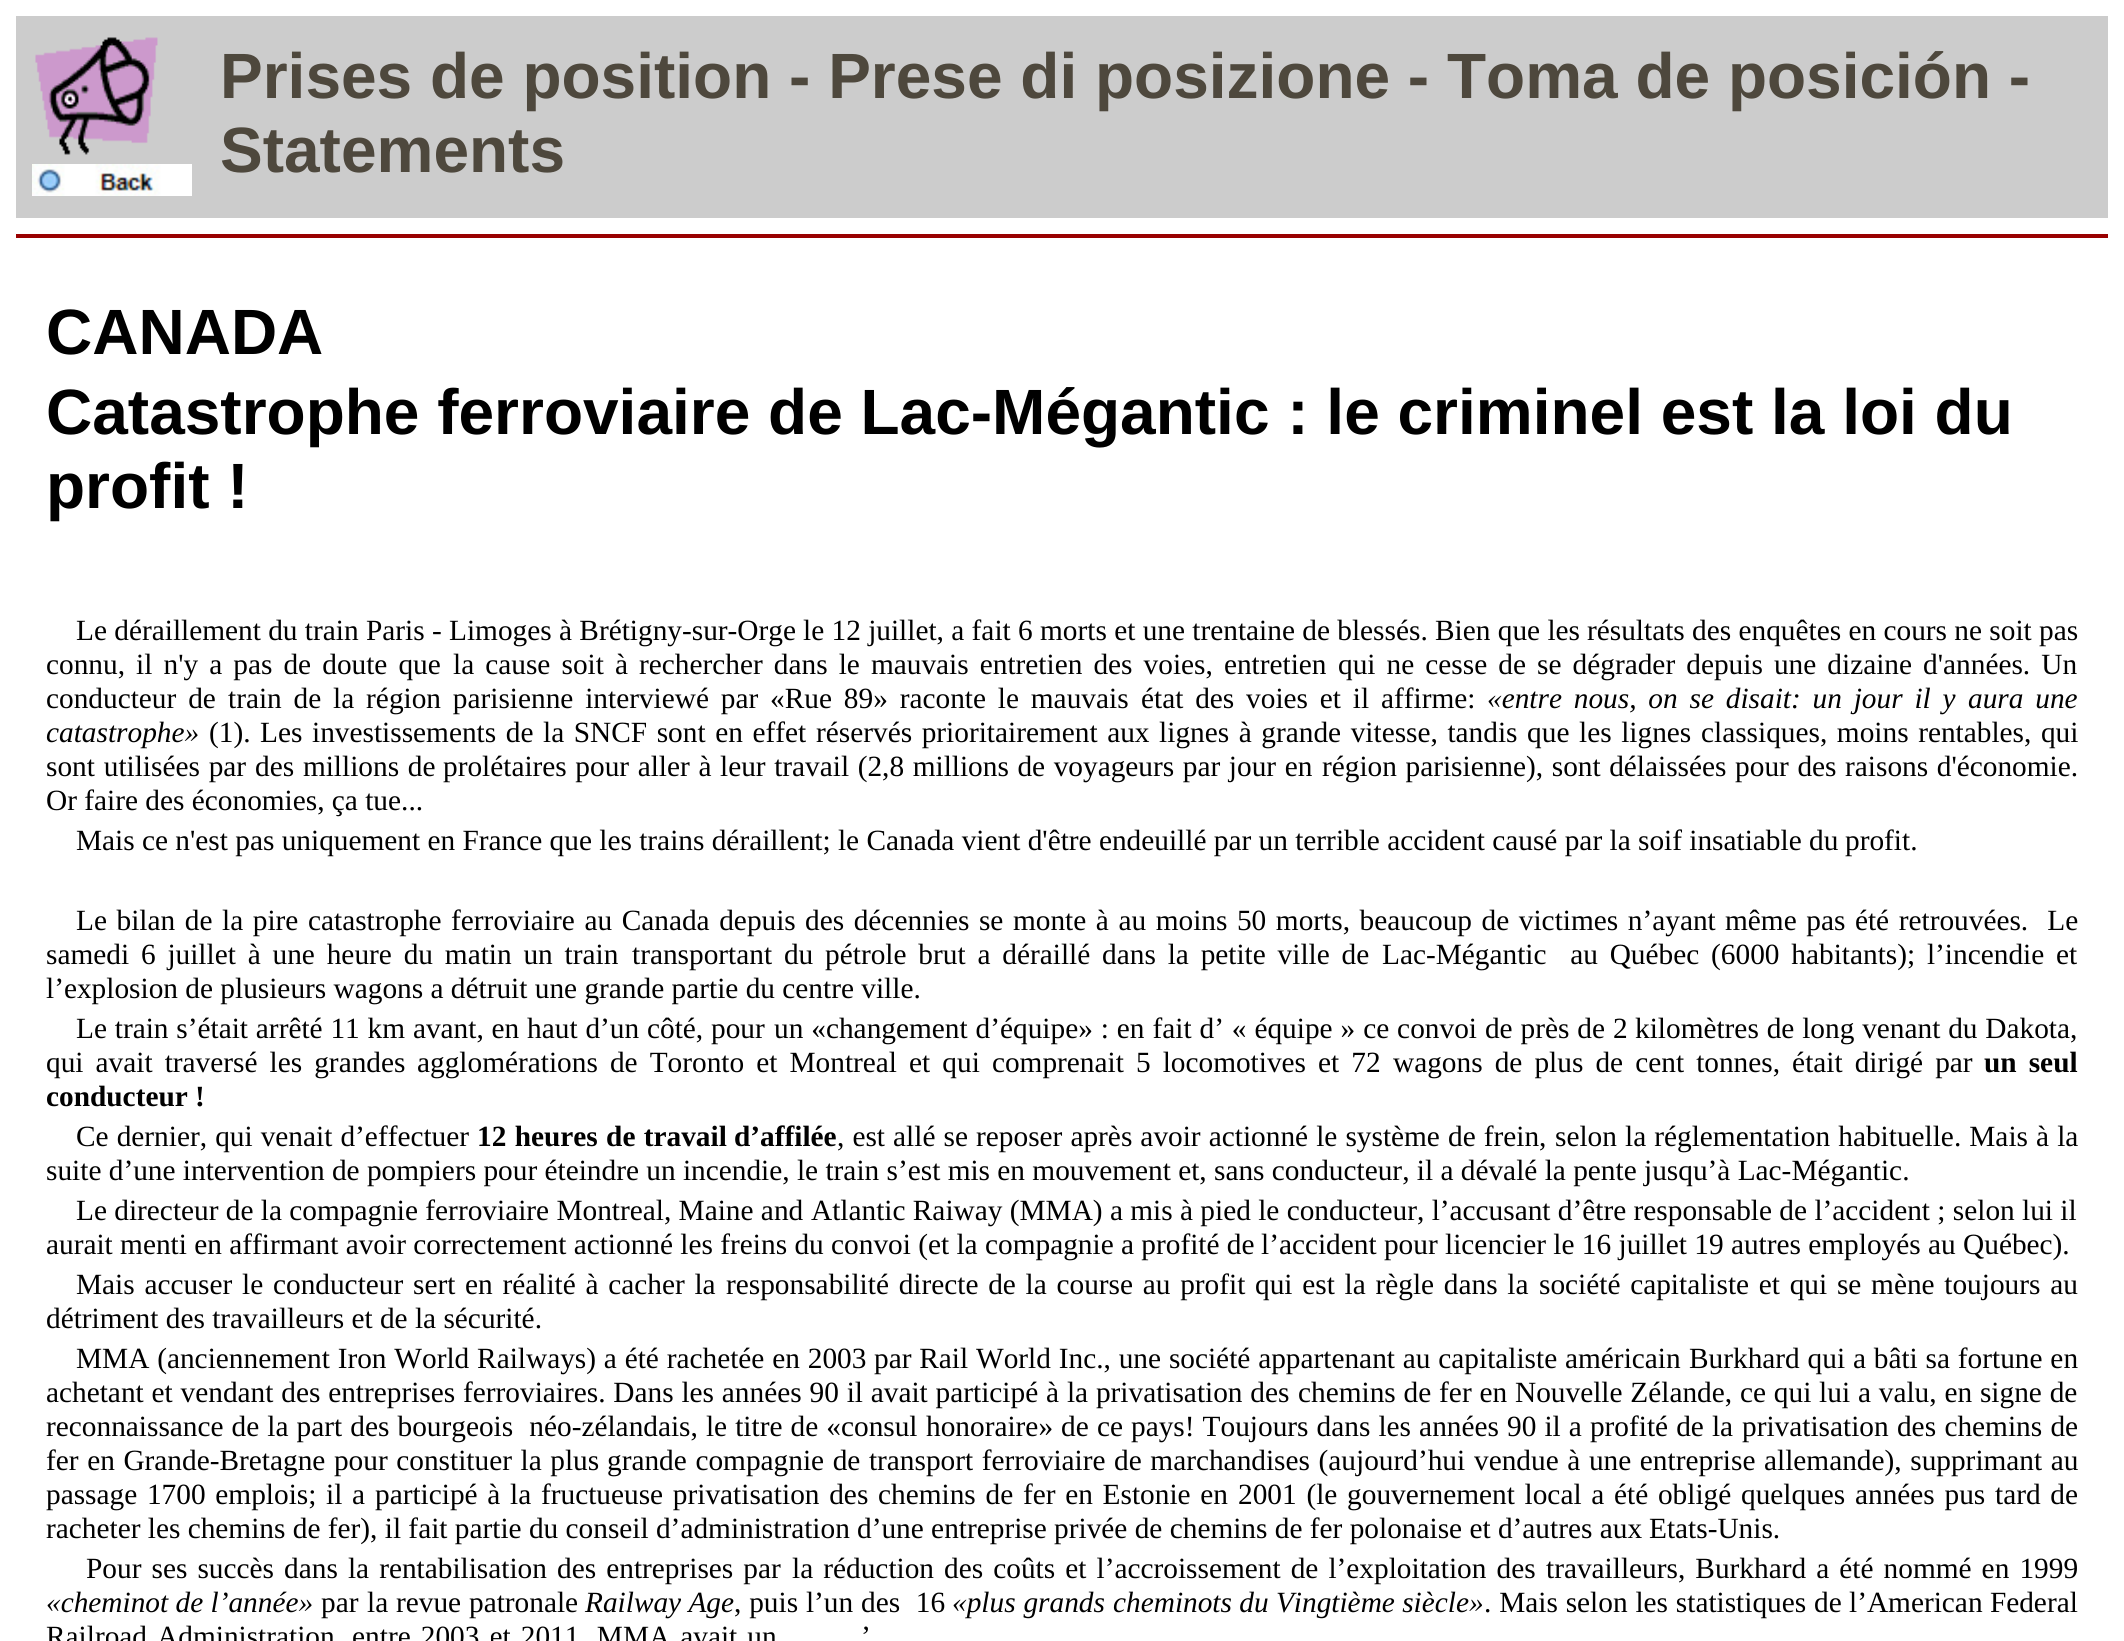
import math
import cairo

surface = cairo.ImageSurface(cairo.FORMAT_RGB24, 2124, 1641)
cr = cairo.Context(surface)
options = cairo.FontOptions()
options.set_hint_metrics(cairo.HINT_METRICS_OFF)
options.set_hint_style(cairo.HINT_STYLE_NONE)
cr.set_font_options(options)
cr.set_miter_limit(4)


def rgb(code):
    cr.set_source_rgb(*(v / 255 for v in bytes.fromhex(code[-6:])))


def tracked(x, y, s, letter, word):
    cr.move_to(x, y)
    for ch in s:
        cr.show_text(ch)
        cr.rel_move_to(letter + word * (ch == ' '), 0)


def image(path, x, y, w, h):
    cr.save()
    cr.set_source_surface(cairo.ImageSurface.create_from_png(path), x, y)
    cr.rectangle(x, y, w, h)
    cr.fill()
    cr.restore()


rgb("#ffffff")
cr.paint()
rgb("#cccccc")
cr.rectangle(16, 16, 2092, 202)
cr.fill()
image("img/1.png", 35, 37, 123, 118)
image("img/2.png", 32, 164, 160, 32)
rgb("#990000")
cr.rectangle(16, 234, 2092, 4)
cr.fill()
cr.select_font_face("Liberation Sans", cairo.FONT_SLANT_NORMAL, cairo.FONT_WEIGHT_BOLD)
cr.set_font_size(64)
rgb("#4e483d")
cr.move_to(220, 98)
cr.show_text("Prises de position - Prese di posizione - Toma de posición -")
cr.move_to(220, 172)
cr.show_text("Statements")
rgb("#000000")
for x, y, s in [
    (46, 354, "CANADA"),
    (46, 434, "Catastrophe ferroviaire de Lac-Mégantic : le criminel est la loi du"),
    (46, 508, "profit !"),
]:
    cr.move_to(x, y)
    cr.show_text(s)
cr.select_font_face("Liberation Serif")
cr.set_font_size(29.33)
for x, y, s in [
    (76, 640, "Le déraillement du train Paris - Limoges à Brétigny-sur-Orge"),
    (803, 640, "le 12 juillet, a fait 6 morts et une trentaine de blessés. Bien que les"),
    (1587, 640, "résultats des enquêtes en cours ne soit pas"),
]:
    cr.move_to(x, y)
    cr.show_text(s)
for x, y, s in [
    (46, 674, "connu, il n'y a pas de doute que"),
    (453, 674, "la cause soit à rechercher dans le mauvais entretien des voies, entretien"),
    (1338, 674, "qui ne cesse de se dégrader depuis une dizaine d'années. Un"),
]:
    tracked(x, y, s, 0, 3.75)
for x, y, s in [
    (46, 708, "conducteur de"),
    (228, 708, "train de la région parisienne interviewé par «Rue 89» raconte le mauvais"),
    (1141, 708, "état des voies et il affirme:"),
]:
    tracked(x, y, s, 0, 4.5)
cr.select_font_face("Liberation Serif", cairo.FONT_SLANT_ITALIC)
tracked(1487, 708, "«entre nous, on se disait: un jour il y", 0, 4.5)
tracked(1968, 708, "aura une", 0, 4.5)
cr.move_to(46, 742)
cr.show_text("catastrophe»")
cr.select_font_face("Liberation Serif")
for x, y, s in [
    (209, 742, "(1). Les investissements de la SNCF sont en effet"),
    (816, 742, "réservés prioritairement aux lignes à grande vitesse, tandis que les lignes"),
    (1701, 742, "classiques, moins rentables, qui"),
]:
    tracked(x, y, s, 0, 2.25)
tracked(46, 776, "sont utilisées par des millions de", 0, 1.5)
tracked(443, 776, "prolétaires pour aller à leur travail (2,8 millions de voyageurs par jour en", 0, 1.25)
tracked(1322, 776, "région parisienne), sont délaissées pour des raisons d'économie.", 0, 1.25)
for x, y, s in [
    (46, 810, "Or faire des économies, ça tue..."),
    (76, 850, "Mais ce n'est pas uniquement en France que les trains déraillent; le Canada vient d'être endeuillé par un terrible accident causé par la soif insatiable du"),
    (1845, 850, "profit."),
]:
    cr.move_to(x, y)
    cr.show_text(s)
for x, y, s in [
    (76, 930, "Le bilan de la pire catastrophe ferroviaire au Canada depuis"),
    (805, 930, "des décennies se monte à au moins 50 morts, beaucoup de victimes n’ayant"),
    (1725, 930, "même pas été retrouvées.  Le"),
]:
    tracked(x, y, s, 0, 2.25)
for x, y, s in [
    (46, 964, "samedi 6 juillet à une heure du matin un train"),
    (632, 964, "transportant du pétrole brut a déraillé dans la petite ville de"),
    (1382, 964, "Lac-Mégantic  au Québec (6000 habitants); l’incendie et"),
]:
    tracked(x, y, s, 0, 4.5)
cr.move_to(46, 998)
cr.show_text("l’explosion de plusieurs wagons a détruit une grande partie du centre ville.")
tracked(76, 1038, "Le train s’était arrêté 11 km avant, en haut d’un côté, pour", 0, 0.5)
tracked(774, 1038, "un «changement d’équipe» : en fait d’ « équipe » ce convoi de près de 2", 0, 0.6)
tracked(1635, 1038, "kilomètres de long venant du Dakota,", 0, 0.5)
for x, y, s in [
    (46, 1072, "qui avait traversé les grandes"),
    (417, 1072, "agglomérations de Toronto et Montreal et qui comprenait 5 locomotives et 72"),
    (1393, 1072, "wagons de plus de cent tonnes, était dirigé par"),
]:
    tracked(x, y, s, 0, 4.75)
cr.select_font_face("Liberation Serif", cairo.FONT_SLANT_NORMAL, cairo.FONT_WEIGHT_BOLD)
tracked(1984, 1072, "un seul", 0, 4.75)
cr.move_to(46, 1106)
cr.show_text("conducteur !")
cr.select_font_face("Liberation Serif")
tracked(76, 1146, "Ce dernier, qui venait d’effectuer", 0, 0.75)
cr.select_font_face("Liberation Serif", cairo.FONT_SLANT_NORMAL, cairo.FONT_WEIGHT_BOLD)
tracked(477, 1146, "12 heures de travail", 0, 1)
cr.move_to(734, 1146)
cr.show_text("d’affilée")
cr.select_font_face("Liberation Serif")
tracked(837, 1146, ", est allé se reposer après avoir actionné le système de frein,", 0, 0.75)
tracked(1555, 1146, "selon la réglementation habituelle. Mais à la", 0, 0.75)
for x, y, s in [
    (46, 1180, "suite d’une intervention de pompiers pour éteindre un incendie, le train s’est mis en mouvement et, sans conducteur, il a dévalé la pente jusqu’à Lac-Mégantic."),
    (76, 1220, "Le directeur de la compagnie ferroviaire Montreal, Maine and"),
    (811, 1220, "Atlantic Raiway (MMA) a mis à pied le conducteur, l’accusant d’être responsable de l’accident ; selon lui il"),
    (46, 1254, "aurait menti en affirmant avoir correctement actionné les freins du convoi (et la compagnie a profité de"),
    (1261, 1254, "l’accident pour licencier le 16 juillet 19 autres employés au Québec)."),
]:
    cr.move_to(x, y)
    cr.show_text(s)
for x, y, s in [
    (76, 1294, "Mais accuser le conducteur sert en réalité à cacher la"),
    (726, 1294, "responsabilité directe de la course au profit qui est la règle dans la"),
    (1539, 1294, "société capitaliste et qui se mène toujours au"),
]:
    tracked(x, y, s, 0, 2.4)
cr.move_to(46, 1328)
cr.show_text("détriment des travailleurs et de la sécurité.")
for x, y, s in [
    (76, 1368, "MMA (anciennement Iron World Railways) a été rachetée en 2003"),
    (874, 1368, "par Rail World Inc., une société appartenant au capitaliste américain"),
    (1689, 1368, "Burkhard qui a bâti sa fortune en"),
    (46, 1402, "achetant et vendant des entreprises"),
    (463, 1402, "ferroviaires. Dans les années 90 il avait participé à la privatisation des"),
    (1298, 1402, "chemins de fer en Nouvelle Zélande, ce qui lui a valu, en signe de"),
]:
    tracked(x, y, s, 0, 0.5)
tracked(46, 1436, "reconnaissance de la part des bourgeois  néo-zélandais, le titre de «consul", 0, 0.75)
tracked(926, 1436, "honoraire» de ce pays! Toujours dans les années 90 il a profité de la", 0, 0.75)
tracked(1742, 1436, "privatisation des chemins de", 0, 1)
for x, y, s in [
    (46, 1470, "fer en Grande-Bretagne pour constituer la plus"),
    (607, 1470, "grande compagnie de transport ferroviaire de marchandises (aujourd’hui"),
    (1474, 1470, "vendue à une entreprise allemande), supprimant au"),
]:
    tracked(x, y, s, 0, 1.25)
for x, y, s in [
    (46, 1504, "passage 1700 emplois; il a"),
    (375, 1504, "participé à la fructueuse privatisation des chemins de fer en Estonie en"),
    (1238, 1504, "2001 (le gouvernement local a été obligé quelques années pus tard de"),
]:
    tracked(x, y, s, 0, 2.4)
for x, y, s in [
    (46, 1538, "racheter les chemins de fer), il fait partie du conseil d’administration"),
    (857, 1538, "d’une entreprise privée de chemins de fer polonaise et d’autres aux"),
    (1649, 1538, "Etats-Unis."),
]:
    cr.move_to(x, y)
    cr.show_text(s)
for x, y, s in [
    (86, 1578, "Pour ses succès dans la rentabilisation des entreprises par"),
    (792, 1578, "la réduction des coûts et l’accroissement de l’exploitation des"),
    (1546, 1578, "travailleurs, Burkhard a été nommé en 1999"),
]:
    tracked(x, y, s, 0, 2.75)
cr.select_font_face("Liberation Serif", cairo.FONT_SLANT_ITALIC)
cr.move_to(46, 1612)
cr.show_text("«cheminot de l’année»")
cr.select_font_face("Liberation Serif")
cr.move_to(321, 1612)
cr.show_text("par")
tracked(367, 1612, "la revue patronale", 0, 0.5)
cr.select_font_face("Liberation Serif", cairo.FONT_SLANT_ITALIC)
cr.move_to(585, 1612)
cr.show_text("Railway Age")
cr.select_font_face("Liberation Serif")
tracked(734, 1612, ", puis l’un des  16", 0, 0.5)
cr.select_font_face("Liberation Serif", cairo.FONT_SLANT_ITALIC)
tracked(952, 1612, "«plus grands", 0, 0.5)
cr.move_to(1113, 1612)
cr.show_text("cheminots du Vingtième siècle»")
cr.select_font_face("Liberation Serif")
tracked(1484, 1612, ". Mais selon les statistiques de", 0, 0.5)
cr.move_to(1849, 1612)
cr.show_text("l’American Federal")
tracked(46, 1646, "Railroad Administration, entre 2003 et 2011, MMA avait un", 0, 2.75)
tracked(861, 1646, "’", 0, 2.75)
surface.write_to_png("page.png")
